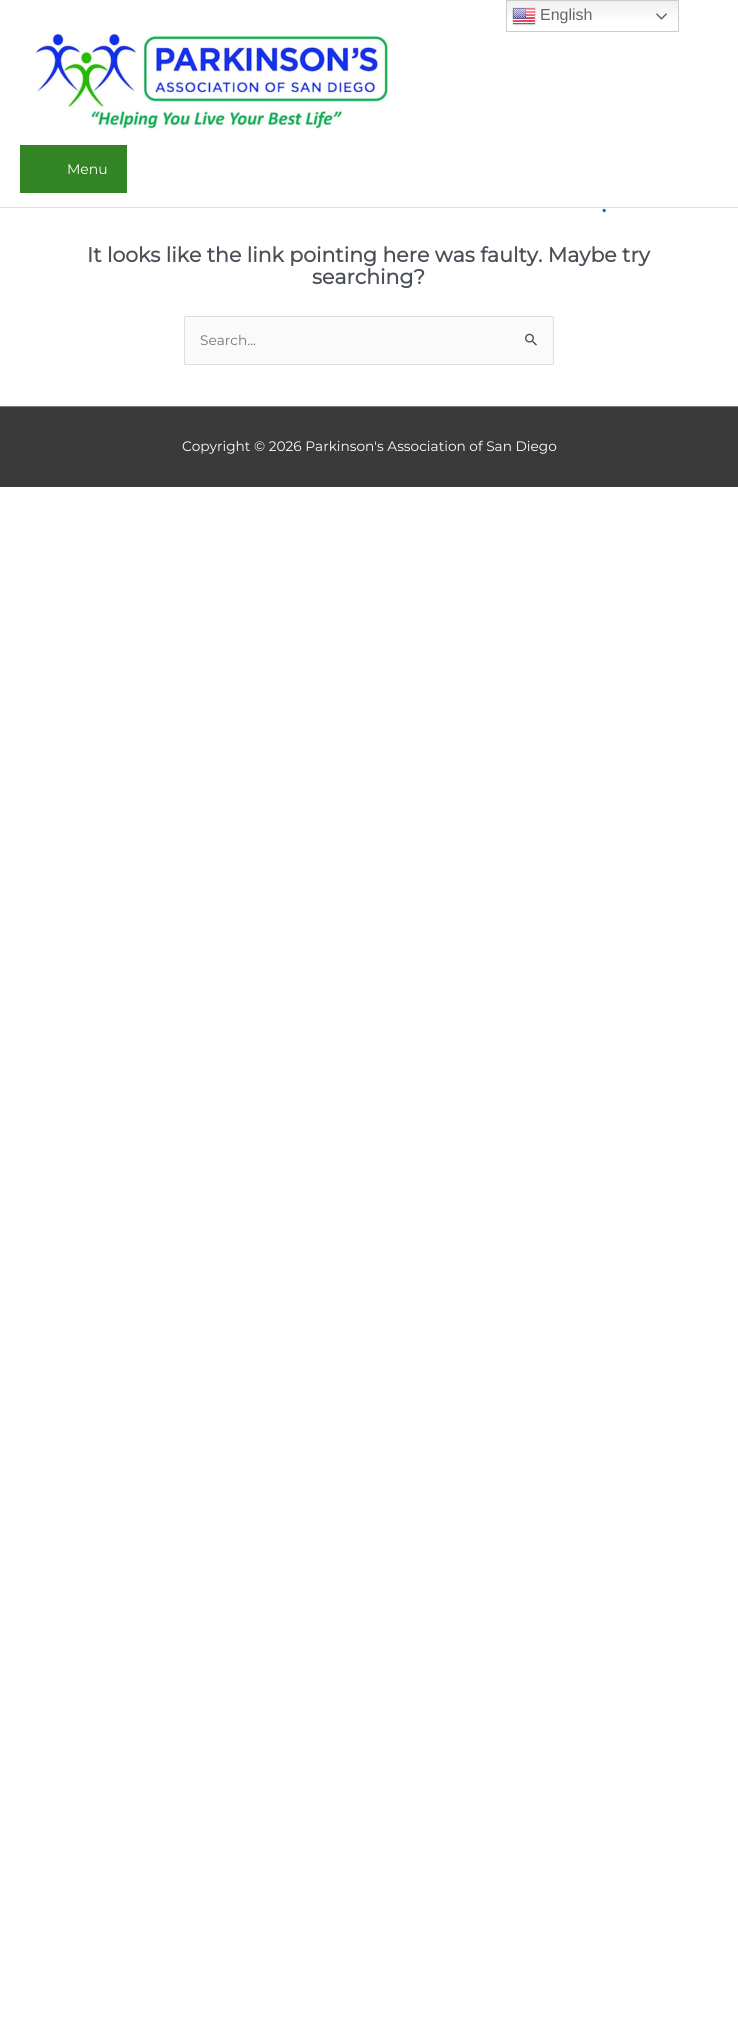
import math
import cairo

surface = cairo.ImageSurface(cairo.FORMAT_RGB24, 738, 2022)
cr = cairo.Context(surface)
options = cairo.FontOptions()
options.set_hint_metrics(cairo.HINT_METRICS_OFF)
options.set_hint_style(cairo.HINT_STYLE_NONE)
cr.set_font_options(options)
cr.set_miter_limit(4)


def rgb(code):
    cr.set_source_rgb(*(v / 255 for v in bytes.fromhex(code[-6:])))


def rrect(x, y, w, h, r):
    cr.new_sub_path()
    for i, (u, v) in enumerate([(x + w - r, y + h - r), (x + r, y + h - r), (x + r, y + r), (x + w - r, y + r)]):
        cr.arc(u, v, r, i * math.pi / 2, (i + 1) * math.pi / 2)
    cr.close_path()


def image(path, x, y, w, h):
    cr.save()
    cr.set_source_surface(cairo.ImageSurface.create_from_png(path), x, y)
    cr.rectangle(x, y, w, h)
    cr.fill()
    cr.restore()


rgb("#ffffff")
cr.paint()
gradient = cairo.LinearGradient(593, 0, 593, 32)
gradient.add_color_stop_rgba(0, 0.937, 0.937, 0.937, 1)
gradient.add_color_stop_rgba(0.7, 1, 1, 1, 1)
cr.set_source(gradient)
cr.rectangle(507, 1, 171, 18)
cr.fill()
cr.rectangle(506.5, 0.5, 172, 31)
rgb("#cccccc")
cr.set_line_width(1)
cr.stroke()
image("img/1.png", 512, 7, 24, 19)
image("img/2.png", 656, 13, 11, 7)
rgb("#dddddd")
cr.rectangle(0, 207, 738, 1)
cr.fill()
image("img/3.png", 35, 32, 353, 98)
rgb("#338425")
cr.rectangle(20, 145, 107, 48)
cr.fill()
rgb("#fafafa")
rrect(184.5, 316.5, 369, 48, 1.5)
cr.fill_preserve()
rgb("#dddddd")
cr.stroke()
image("img/4.png", 525, 333, 12, 13)
rgb("#7a7a7a")
cr.rectangle(0, 406, 738, 1)
cr.fill()
rgb("#3a3a3a")
cr.rectangle(0, 407, 738, 80)
cr.fill()
cr.select_font_face("Liberation Sans")
cr.set_font_size(16)
rgb("#666666")
cr.move_to(540, 20)
cr.show_text("English")
cr.select_font_face("Montserrat Thin")
cr.set_font_size(14)
rgb("#ffffff")
cr.move_to(67, 174)
cr.show_text("Menu")
cr.set_font_size(30)
rgb("#0170b9")
cr.move_to(601, 212)
cr.show_text(".")
cr.select_font_face("Montserrat", cairo.FONT_SLANT_NORMAL, cairo.FONT_WEIGHT_BOLD)
cr.set_font_size(20.5)
rgb("#4b4f58")
cr.move_to(87, 262)
cr.show_text("It looks like the link pointing here was faulty. Maybe try")
cr.move_to(312, 284)
cr.show_text("searching?")
cr.select_font_face("Montserrat Thin")
cr.set_font_size(13.7)
rgb("#757575")
cr.move_to(200, 345)
cr.show_text("Search...")
rgb("#ffffff")
cr.move_to(182, 451)
cr.show_text("Copyright © 2026 Parkinson's Association of San Diego")
surface.write_to_png("page.png")
